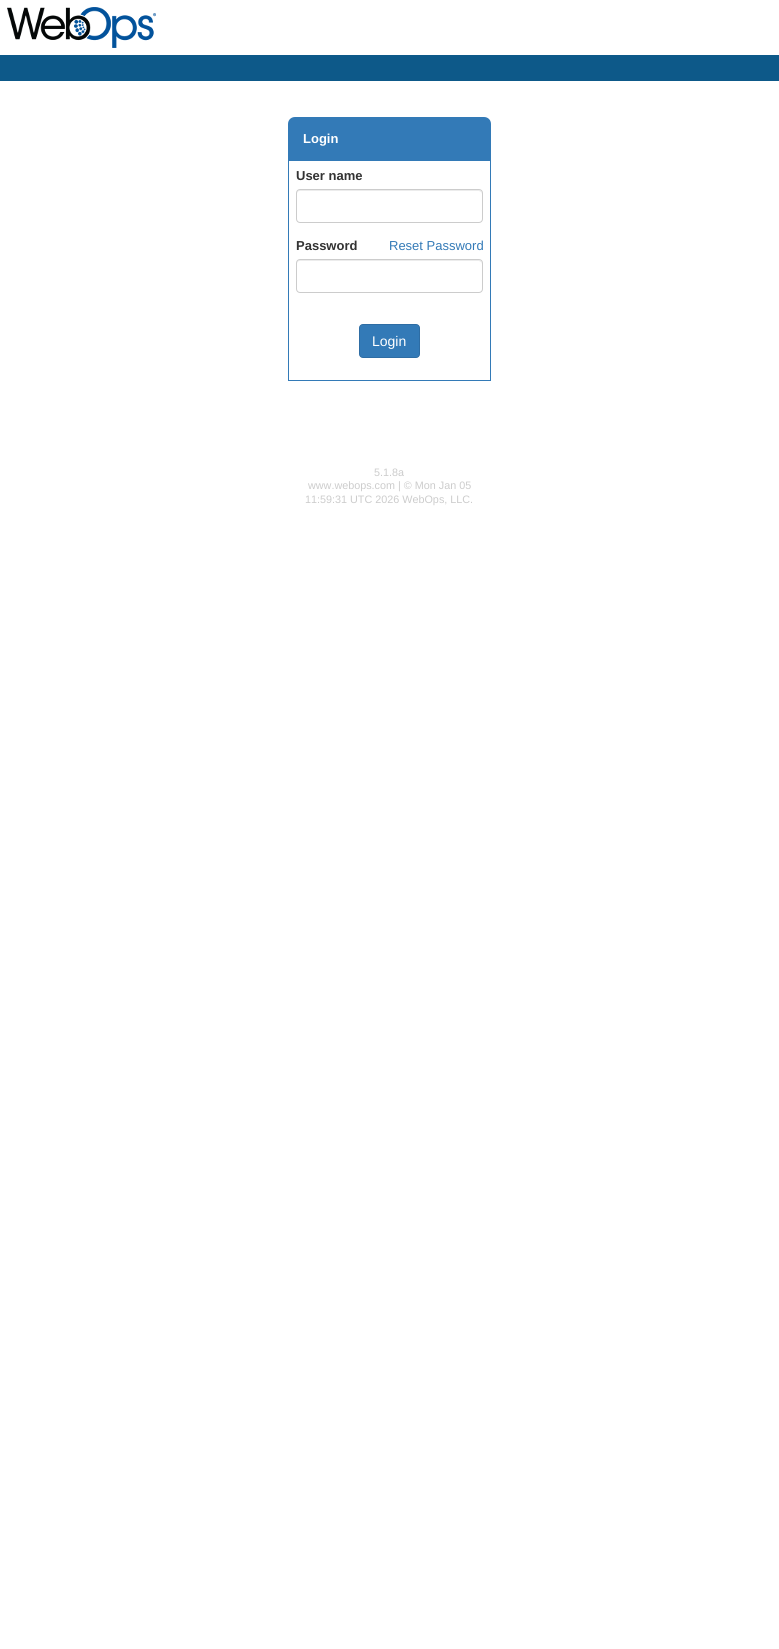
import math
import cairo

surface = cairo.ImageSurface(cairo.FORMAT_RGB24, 779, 1649)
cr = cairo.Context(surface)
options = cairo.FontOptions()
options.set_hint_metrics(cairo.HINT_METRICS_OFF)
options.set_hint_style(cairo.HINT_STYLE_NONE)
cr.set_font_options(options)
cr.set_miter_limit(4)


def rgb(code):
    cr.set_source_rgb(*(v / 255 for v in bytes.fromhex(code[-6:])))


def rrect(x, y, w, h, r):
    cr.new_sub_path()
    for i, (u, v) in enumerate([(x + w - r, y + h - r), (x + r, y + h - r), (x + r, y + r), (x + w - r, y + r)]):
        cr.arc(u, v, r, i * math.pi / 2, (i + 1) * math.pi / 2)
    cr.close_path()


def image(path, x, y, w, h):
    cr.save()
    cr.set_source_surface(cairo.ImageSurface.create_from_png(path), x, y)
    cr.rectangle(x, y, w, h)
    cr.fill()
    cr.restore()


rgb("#ffffff")
cr.paint()
image("img/1.png", 7, 7, 149, 41)
rgb("#0d5989")
cr.rectangle(0, 55, 779, 26)
cr.fill()
rgb("#337ab7")
cr.new_path()
cr.move_to(295, 117)
cr.line_to(484, 117)
cr.curve_to(488, 117, 491, 120, 491, 124)
cr.line_to(491, 161)
cr.line_to(288, 161)
cr.line_to(288, 124)
cr.curve_to(288, 120, 291, 117, 295, 117)
cr.close_path()
cr.fill()
for x, y, w, h, color in [
    (490, 161, 1, 220, "#337ab7"),
    (288, 380, 203, 1, "#337ab7"),
    (288, 161, 1, 220, "#337ab7"),
]:
    rgb(color)
    cr.rectangle(x, y, w, h)
    cr.fill()
rgb("#ececec")
cr.new_path()
cr.move_to(300, 191)
cr.line_to(479, 191)
cr.line_to(481, 192)
cr.line_to(482, 194)
cr.curve_to(482, 192, 481, 190, 479, 190)
cr.line_to(299, 190)
cr.curve_to(297, 191, 297, 192, 297, 194)
cr.curve_to(297, 192, 298, 191, 300, 191)
cr.close_path()
cr.fill()
rrect(296.5, 189.5, 186, 33, 3.5)
rgb("#cccccc")
cr.set_line_width(1)
cr.stroke()
rgb("#ececec")
cr.new_path()
cr.move_to(300, 261)
cr.line_to(479, 261)
cr.line_to(481, 262)
cr.line_to(482, 264)
cr.curve_to(482, 262, 481, 260, 479, 260)
cr.line_to(299, 260)
cr.curve_to(297, 261, 297, 262, 297, 264)
cr.curve_to(297, 262, 298, 261, 300, 261)
cr.close_path()
cr.fill()
rrect(296.5, 259.5, 186, 33, 3.5)
rgb("#cccccc")
cr.stroke()
rgb("#337ab7")
rrect(359.5, 324.5, 60, 33, 3.5)
cr.fill_preserve()
rgb("#2e6da4")
cr.stroke()
cr.select_font_face("Liberation Sans", cairo.FONT_SLANT_NORMAL, cairo.FONT_WEIGHT_BOLD)
cr.set_font_size(13)
rgb("#ffffff")
cr.move_to(303, 143)
cr.show_text("Login")
rgb("#333333")
cr.move_to(296, 180)
cr.show_text("User name")
cr.move_to(296, 250)
cr.show_text("Password")
cr.select_font_face("Liberation Sans")
rgb("#337ab7")
cr.move_to(389, 250)
cr.show_text("Reset Password")
cr.set_font_size(14)
rgb("#ffffff")
cr.move_to(372, 346)
cr.show_text("Login")
cr.set_font_size(10.8)
rgb("#cccccc")
for x, y, s in [
    (374, 476, "5.1.8a"),
    (308, 489, "www.webops.com | © Mon Jan 05"),
    (305, 503, "11:59:31 UTC 2026 WebOps, LLC."),
]:
    cr.move_to(x, y)
    cr.show_text(s)
surface.write_to_png("page.png")
